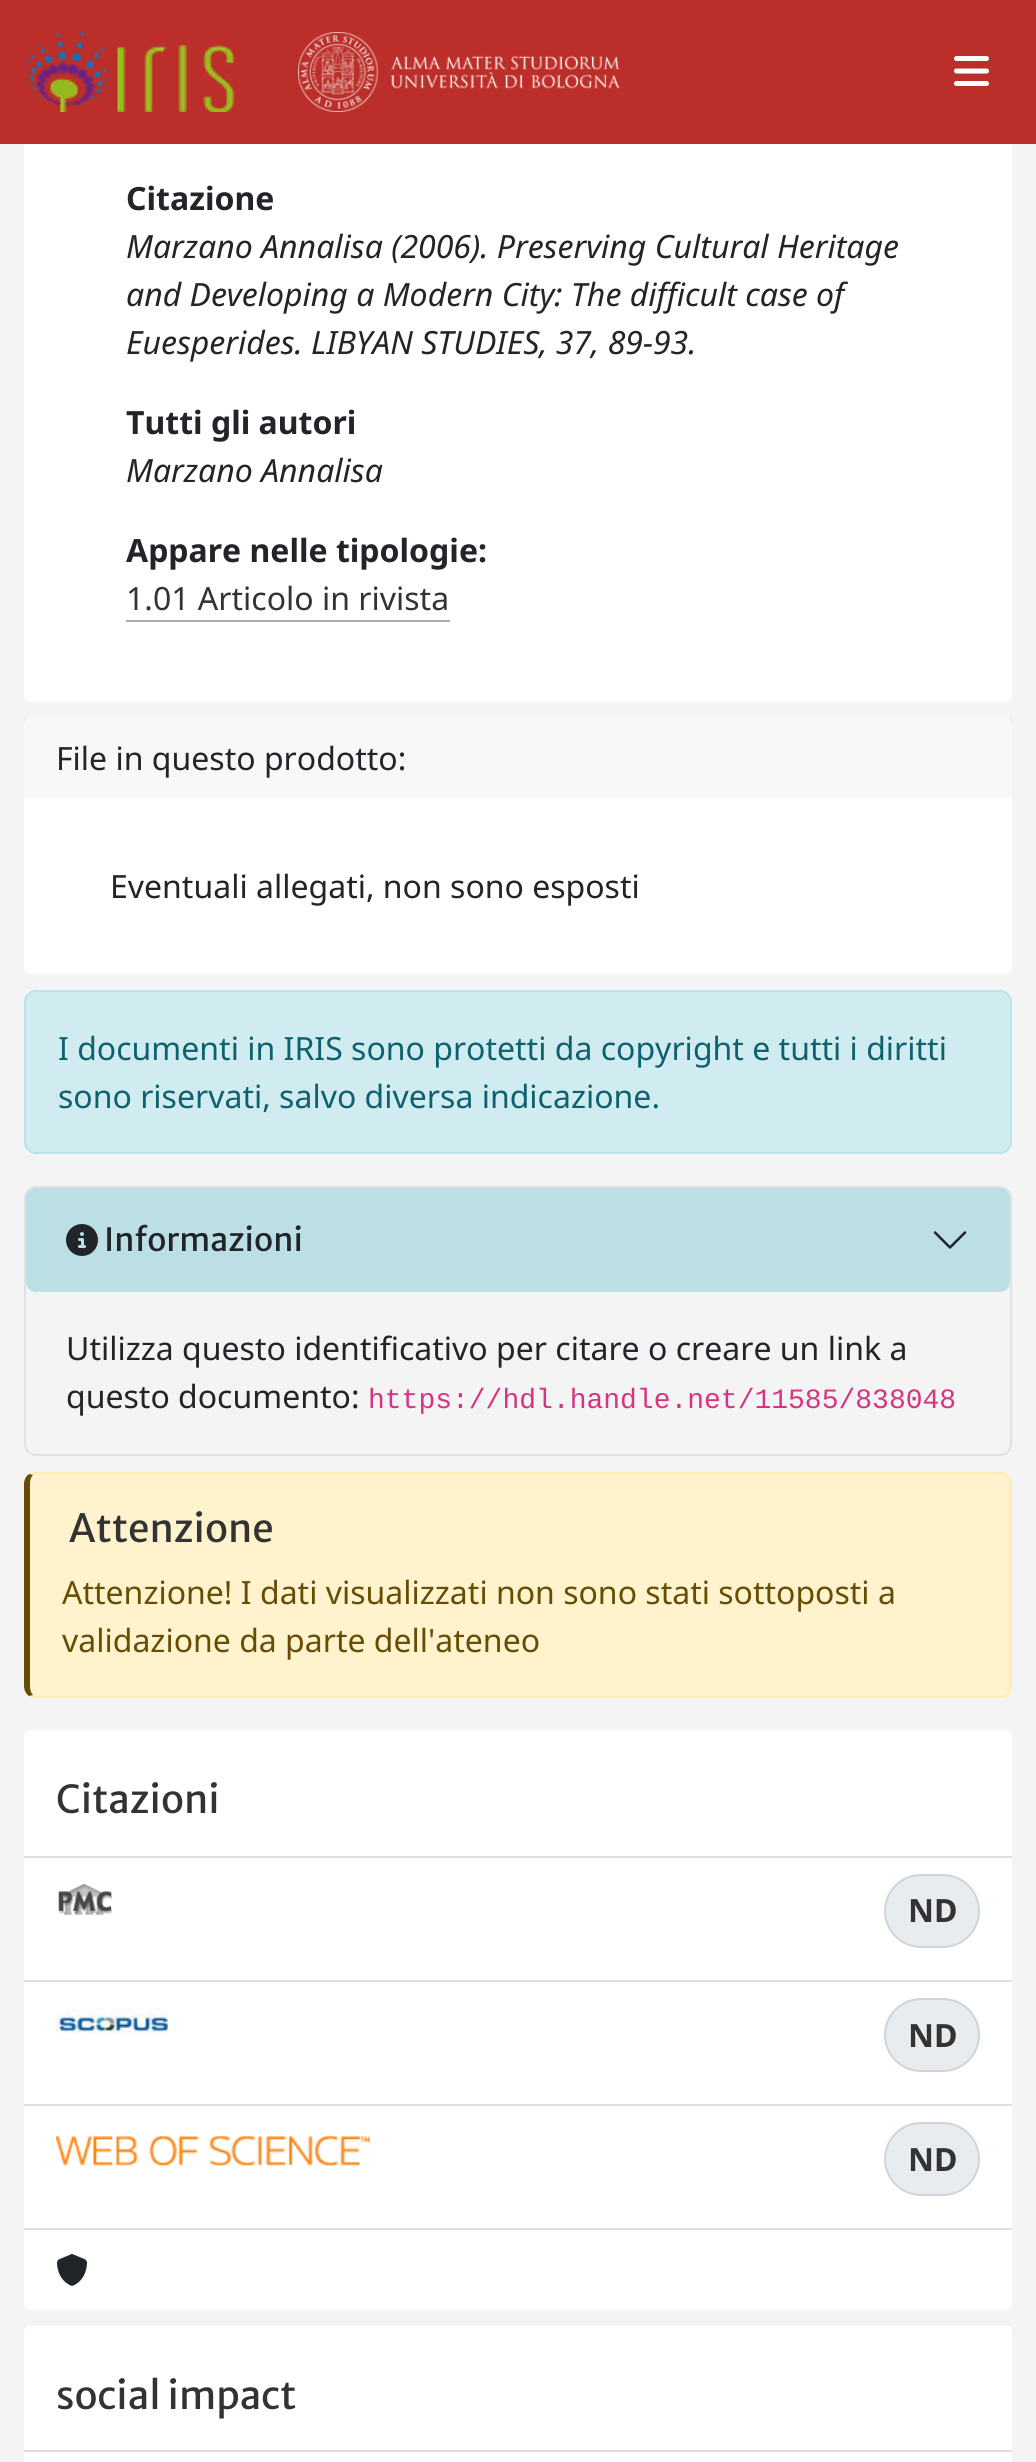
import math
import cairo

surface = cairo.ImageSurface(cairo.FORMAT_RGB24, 1036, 2462)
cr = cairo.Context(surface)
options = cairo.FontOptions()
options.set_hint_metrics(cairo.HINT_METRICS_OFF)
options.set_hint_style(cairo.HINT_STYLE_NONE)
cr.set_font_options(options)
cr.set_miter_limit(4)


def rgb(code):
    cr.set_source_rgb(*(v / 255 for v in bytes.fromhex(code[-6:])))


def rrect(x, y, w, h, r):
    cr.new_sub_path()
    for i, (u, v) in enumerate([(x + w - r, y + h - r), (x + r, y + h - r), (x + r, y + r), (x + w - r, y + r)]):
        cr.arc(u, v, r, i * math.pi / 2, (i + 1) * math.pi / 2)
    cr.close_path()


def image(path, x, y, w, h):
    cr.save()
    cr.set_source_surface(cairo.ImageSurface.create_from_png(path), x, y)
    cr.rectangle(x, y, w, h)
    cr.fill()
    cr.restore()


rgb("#f4f4f4")
cr.paint()
rgb("#ffffff")
rrect(24, -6, 988, 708, 6)
cr.fill()
rgb("#bb2e29")
cr.rectangle(0, 0, 1036, 144)
cr.fill()
image("img/1.png", 24, 32, 210, 80)
image("img/2.png", 298, 32, 322, 80)
image("img/3.png", 954, 56, 35, 30)
rgb("#aaaaaa")
cr.rectangle(126, 620, 324, 2)
cr.fill()
rgb("#ffffff")
rrect(24, 718, 988, 256, 6)
cr.fill()
cr.set_source_rgba(0, 0, 0, 0.03)
cr.rectangle(24, 718, 988, 80)
cr.fill()
rgb("#d1ecf1")
rrect(25, 991, 986, 162, 11)
cr.fill_preserve()
rgb("#b9e3ea")
cr.stroke()
rrect(25, 1187, 986, 268, 11)
rgb("#dee2e6")
cr.stroke()
cr.set_source_rgba(0.09, 0.635, 0.722, 0.25)
rrect(26, 1188, 984, 104, 10)
cr.fill()
image("img/4.png", 66, 1224, 32, 32)
image("img/5.png", 933, 1231, 34, 18)
rgb("#fff3cd")
cr.new_path()
cr.move_to(36, 1474)
cr.line_to(1000, 1474)
cr.curve_to(1006, 1474, 1010, 1478, 1010, 1484)
cr.line_to(1010, 1686)
cr.curve_to(1010, 1692, 1006, 1696, 1000, 1696)
cr.line_to(36, 1696)
cr.curve_to(33, 1696, 30, 1692, 30, 1686)
cr.line_to(30, 1484)
cr.curve_to(30, 1478, 33, 1474, 36, 1474)
cr.close_path()
cr.fill()
rgb("#ffecb5")
cr.new_path()
cr.move_to(36, 1472)
cr.curve_to(33, 1472, 31, 1473, 29, 1474)
cr.line_to(33, 1475)
cr.line_to(36, 1474)
cr.line_to(1000, 1474)
cr.curve_to(1003, 1474, 1005, 1475, 1007, 1477)
cr.line_to(1009, 1475)
cr.curve_to(1006, 1473, 1004, 1472, 1000, 1472)
cr.close_path()
cr.fill()
cr.new_path()
cr.move_to(1012, 1686)
cr.line_to(1012, 1484)
cr.curve_to(1012, 1480, 1011, 1478, 1009, 1475)
cr.line_to(1007, 1477)
cr.curve_to(1009, 1478, 1010, 1481, 1010, 1484)
cr.line_to(1010, 1686)
cr.curve_to(1010, 1689, 1009, 1692, 1007, 1693)
cr.line_to(1009, 1695)
cr.curve_to(1011, 1692, 1012, 1690, 1012, 1686)
cr.close_path()
cr.fill()
cr.new_path()
cr.move_to(36, 1698)
cr.line_to(1000, 1698)
cr.curve_to(1004, 1698, 1006, 1697, 1009, 1695)
cr.line_to(1007, 1693)
cr.curve_to(1005, 1695, 1003, 1696, 1000, 1696)
cr.line_to(36, 1696)
cr.line_to(33, 1695)
cr.line_to(29, 1696)
cr.curve_to(31, 1697, 33, 1698, 36, 1698)
cr.close_path()
cr.fill()
rgb("#664d03")
cr.new_path()
cr.move_to(24, 1484)
cr.line_to(24, 1686)
cr.curve_to(24, 1690, 26, 1694, 29, 1696)
cr.line_to(33, 1695)
cr.curve_to(31, 1693, 30, 1690, 30, 1686)
cr.line_to(30, 1484)
cr.curve_to(30, 1480, 31, 1477, 33, 1475)
cr.line_to(29, 1474)
cr.curve_to(26, 1476, 24, 1480, 24, 1484)
cr.close_path()
cr.fill()
rgb("#ffffff")
rrect(24, 1730, 988, 580, 6)
cr.fill()
cr.new_path()
cr.move_to(30, 1730)
cr.line_to(1006, 1730)
cr.curve_to(1009.5, 1730, 1012, 1732.5, 1012, 1736)
cr.line_to(1012, 1856)
cr.line_to(24, 1856)
cr.line_to(24, 1736)
cr.curve_to(24, 1732.5, 26.5, 1730, 30, 1730)
cr.close_path()
cr.fill()
rgb("#dddddd")
cr.rectangle(24, 1856, 988, 2)
cr.fill()
rgb("#dfdfdf")
cr.rectangle(24, 1980, 988, 2)
cr.fill()
image("img/6.png", 58, 1883, 54, 32)
rgb("#e9ecef")
rrect(885, 1875, 94, 72, 36)
cr.fill_preserve()
rgb("#ced4da")
cr.stroke()
rgb("#dfdfdf")
cr.rectangle(24, 2104, 988, 2)
cr.fill()
image("img/7.png", 56, 2007, 112, 27)
rgb("#e9ecef")
rrect(885, 1999, 94, 72, 36)
cr.fill_preserve()
rgb("#ced4da")
cr.stroke()
rgb("#dfdfdf")
cr.rectangle(24, 2228, 988, 2)
cr.fill()
image("img/8.png", 56, 2136, 314, 30)
rgb("#e9ecef")
rrect(885, 2123, 94, 72, 36)
cr.fill_preserve()
rgb("#ced4da")
cr.stroke()
rgb("#ffffff")
cr.new_path()
cr.move_to(24, 2230)
cr.line_to(1012, 2230)
cr.line_to(1012, 2304)
cr.curve_to(1012, 2307.5, 1009.5, 2310, 1006, 2310)
cr.line_to(30, 2310)
cr.curve_to(26.5, 2310, 24, 2307.5, 24, 2304)
cr.close_path()
cr.fill()
image("img/9.png", 57, 2254, 30, 32)
rrect(24, 2326, 988, 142, 6)
cr.fill()
cr.new_path()
cr.move_to(30, 2326)
cr.line_to(1006, 2326)
cr.curve_to(1009.5, 2326, 1012, 2328.5, 1012, 2332)
cr.line_to(1012, 2450)
cr.line_to(24, 2450)
cr.line_to(24, 2332)
cr.curve_to(24, 2328.5, 26.5, 2326, 30, 2326)
cr.close_path()
cr.fill()
rgb("#dddddd")
cr.rectangle(24, 2450, 988, 2)
cr.fill()
cr.select_font_face("Noto Sans", cairo.FONT_SLANT_NORMAL, cairo.FONT_WEIGHT_BOLD)
cr.set_font_size(32)
rgb("#212529")
cr.move_to(126, 210)
cr.show_text("Citazione")
cr.select_font_face("Noto Sans", cairo.FONT_SLANT_ITALIC)
for x, y, s in [
    (126, 258, "Marzano Annalisa (2006). Preserving Cultural Heritage"),
    (126, 306, "and Developing a Modern City: The difficult case of"),
    (126, 354, "Euesperides. LIBYAN STUDIES, 37, 89-93."),
]:
    cr.move_to(x, y)
    cr.show_text(s)
cr.select_font_face("Noto Sans", cairo.FONT_SLANT_NORMAL, cairo.FONT_WEIGHT_BOLD)
cr.move_to(126, 434)
cr.show_text("Tutti gli autori")
cr.select_font_face("Noto Sans", cairo.FONT_SLANT_ITALIC)
cr.move_to(126, 482)
cr.show_text("Marzano Annalisa")
cr.select_font_face("Noto Sans", cairo.FONT_SLANT_NORMAL, cairo.FONT_WEIGHT_BOLD)
cr.move_to(126, 562)
cr.show_text("Appare nelle tipologie:")
cr.select_font_face("Noto Sans")
rgb("#333333")
cr.move_to(126, 610)
cr.show_text("1.01 Articolo in rivista")
rgb("#212529")
cr.move_to(56, 770)
cr.show_text("File in questo prodotto:")
cr.move_to(110, 898)
cr.show_text("Eventuali allegati, non sono esposti")
rgb("#0e616e")
cr.move_to(58, 1060)
cr.show_text("I documenti in IRIS sono protetti da copyright e tutti i diritti")
cr.move_to(58, 1108)
cr.show_text("sono riservati, salvo diversa indicazione.")
cr.select_font_face("Merriweather Sans")
rgb("#212529")
cr.move_to(104, 1251)
cr.show_text("Informazioni")
cr.select_font_face("Noto Sans")
cr.move_to(66, 1360)
cr.show_text("Utilizza questo identificativo per citare o creare un link a")
cr.move_to(66, 1408)
cr.show_text("questo documento:")
cr.select_font_face("Liberation Mono")
cr.set_font_size(28)
rgb("#d63384")
cr.move_to(368, 1408)
cr.show_text("https://hdl.handle.net/11585/838048")
cr.select_font_face("Merriweather Sans")
cr.set_font_size(38.5)
rgb("#333333")
cr.move_to(69, 1542)
cr.show_text("Attenzione")
cr.select_font_face("Noto Sans")
cr.set_font_size(32)
rgb("#664d03")
cr.move_to(62, 1604)
cr.show_text("Attenzione! I dati visualizzati non sono stati sottoposti a")
cr.move_to(62, 1652)
cr.show_text("validazione da parte dell'ateneo")
cr.select_font_face("Merriweather Sans")
cr.set_font_size(38.5)
rgb("#333333")
cr.move_to(56, 1813)
cr.show_text("Citazioni")
cr.select_font_face("Noto Sans", cairo.FONT_SLANT_NORMAL, cairo.FONT_WEIGHT_BOLD)
cr.set_font_size(32)
for x, y, s in [
    (908, 1922, "ND"),
    (908, 2047, "ND"),
    (908, 2171, "ND"),
]:
    cr.move_to(x, y)
    cr.show_text(s)
cr.select_font_face("Merriweather Sans")
cr.set_font_size(38.5)
cr.move_to(56, 2409)
cr.show_text("social impact")
surface.write_to_png("page.png")
